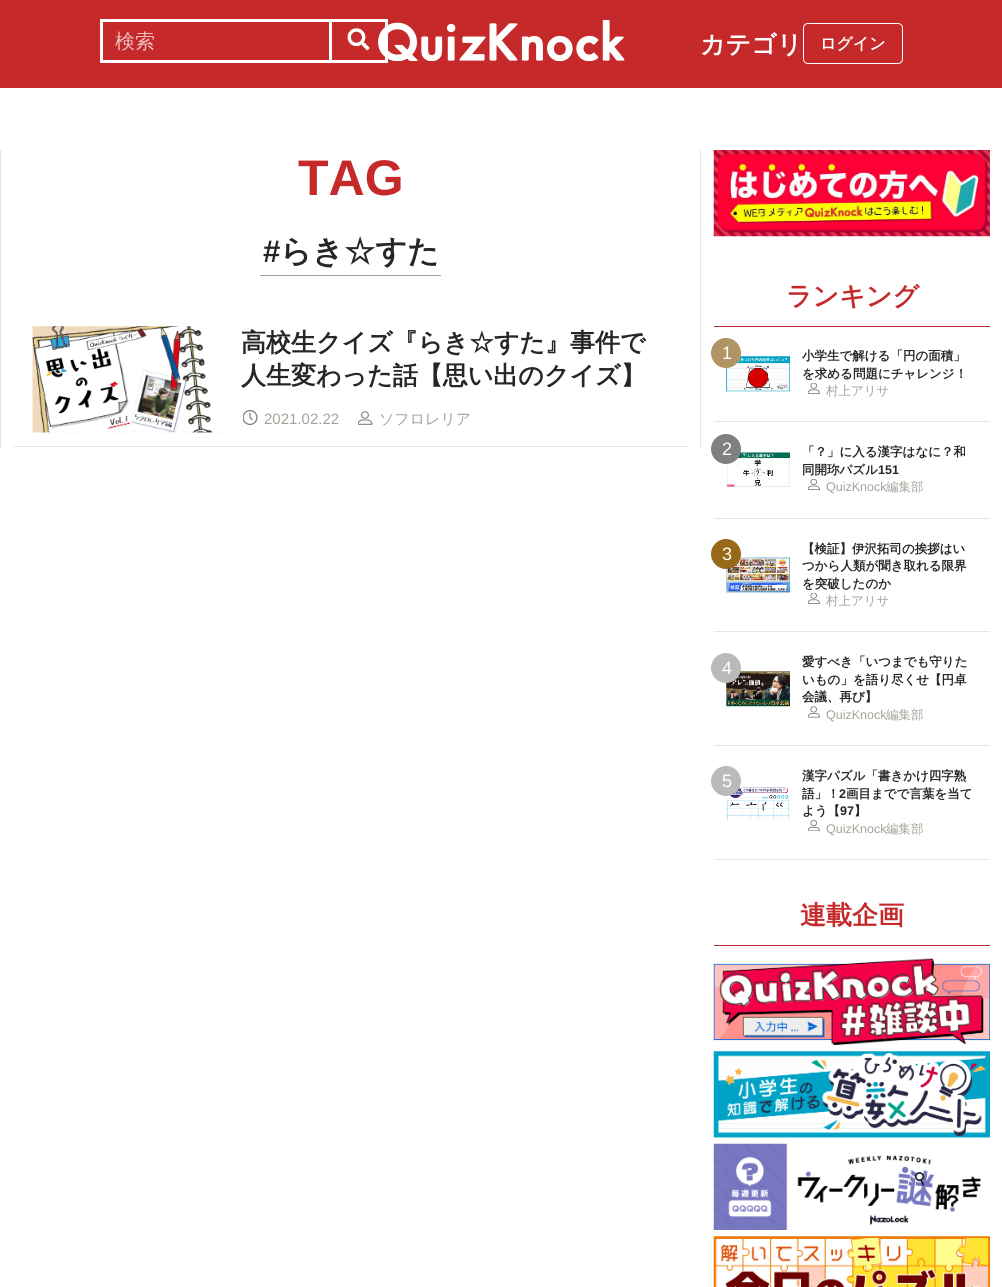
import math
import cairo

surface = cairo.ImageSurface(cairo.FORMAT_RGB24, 1002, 1287)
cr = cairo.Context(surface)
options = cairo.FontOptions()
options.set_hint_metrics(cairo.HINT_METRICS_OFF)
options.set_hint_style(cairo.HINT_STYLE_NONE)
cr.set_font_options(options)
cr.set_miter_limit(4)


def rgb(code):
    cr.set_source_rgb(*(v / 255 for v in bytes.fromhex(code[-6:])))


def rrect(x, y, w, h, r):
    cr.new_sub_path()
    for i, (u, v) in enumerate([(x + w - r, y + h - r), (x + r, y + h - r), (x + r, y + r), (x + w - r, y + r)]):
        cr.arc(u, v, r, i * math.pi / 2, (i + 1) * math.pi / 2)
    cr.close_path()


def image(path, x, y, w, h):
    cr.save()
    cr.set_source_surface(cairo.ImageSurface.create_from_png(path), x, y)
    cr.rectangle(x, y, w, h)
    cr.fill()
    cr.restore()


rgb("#ffffff")
cr.paint()
rgb("#c52929")
cr.rectangle(0, 0, 1002, 88)
cr.fill()
cr.rectangle(101.5, 20.5, 285, 41)
rgb("#ffffff")
cr.set_line_width(3)
cr.stroke()
cr.rectangle(329, 21, 3, 39)
cr.fill()
image("img/1.png", 347, 28, 23, 23)
image("img/2.png", 378, 20, 247, 41)
rrect(803.5, 23.5, 99, 40, 4.5)
cr.set_line_width(1)
cr.stroke()
for x, y, w, h, color in [
    (700, 150, 1, 298, "#e5e5e5"),
    (0, 150, 1, 298, "#e5e5e5"),
    (260, 275, 181, 1, "#a1a499"),
    (14, 446, 674, 1, "#e5e5e5"),
]:
    rgb(color)
    cr.rectangle(x, y, w, h)
    cr.fill()
image("img/3.png", 32, 326, 192, 107)
image("img/4.png", 243, 410, 15, 15)
image("img/5.png", 358, 411, 15, 14)
image("img/6.png", 713, 150, 277, 87)
rgb("#c52929")
cr.rectangle(714, 326, 276, 1)
cr.fill()
rgb("#e5e5e5")
cr.rectangle(714, 421, 276, 1)
cr.fill()
image("img/7.png", 726, 356, 64, 36)
rgb("#b09463")
cr.arc(726, 353, 15, 0, 2 * math.pi)
cr.fill()
image("img/8.png", 808, 383, 12, 11)
rgb("#e5e5e5")
cr.rectangle(714, 518, 276, 1)
cr.fill()
image("img/9.png", 726, 452, 64, 36)
rgb("#808080")
cr.arc(726, 449, 15, 0, 2 * math.pi)
cr.fill()
image("img/10.png", 808, 479, 12, 11)
rgb("#e5e5e5")
cr.rectangle(714, 631, 276, 1)
cr.fill()
image("img/11.png", 726, 557, 64, 36)
rgb("#976918")
cr.arc(726, 554, 15, 0, 2 * math.pi)
cr.fill()
image("img/8.png", 808, 593, 12, 11)
rgb("#e5e5e5")
cr.rectangle(714, 745, 276, 1)
cr.fill()
image("img/12.png", 726, 671, 64, 36)
rgb("#bababa")
cr.arc(726, 668, 15, 0, 2 * math.pi)
cr.fill()
image("img/13.png", 808, 706, 12, 12)
rgb("#e5e5e5")
cr.rectangle(714, 859, 276, 1)
cr.fill()
image("img/14.png", 726, 786, 64, 34)
rgb("#bababa")
cr.arc(726, 781, 15, 0, 2 * math.pi)
cr.fill()
image("img/15.png", 808, 820, 12, 11)
rgb("#c52929")
cr.rectangle(714, 945, 276, 1)
cr.fill()
image("img/16.png", 713, 958, 277, 87)
image("img/17.png", 713, 1051, 277, 87)
image("img/18.png", 713, 1143, 268, 87)
image("img/19.png", 713, 1236, 277, 51)
cr.select_font_face("WenQuanYi Zen Hei Medium")
cr.set_font_size(20)
rgb("#eebfbf")
cr.move_to(115, 48)
cr.show_text("検索")
cr.select_font_face("WenQuanYi Zen Hei", cairo.FONT_SLANT_NORMAL, cairo.FONT_WEIGHT_BOLD)
cr.set_font_size(25)
rgb("#ffffff")
cr.move_to(700, 53)
cr.show_text("カテゴリ")
cr.set_font_size(16)
cr.move_to(820, 49)
cr.show_text("ログイン")
cr.select_font_face("Liberation Sans", cairo.FONT_SLANT_NORMAL, cairo.FONT_WEIGHT_BOLD)
cr.set_font_size(50)
rgb("#c52929")
cr.move_to(298, 195)
cr.show_text("TAG")
cr.set_font_size(31.25)
rgb("#282523")
cr.move_to(263, 262)
cr.show_text("#")
cr.select_font_face("WenQuanYi Zen Hei", cairo.FONT_SLANT_NORMAL, cairo.FONT_WEIGHT_BOLD)
cr.move_to(280, 262)
cr.show_text("らき☆すた")
cr.set_font_size(25)
cr.move_to(241, 351)
cr.show_text("高校生クイズ『らき☆すた』事件で")
cr.move_to(241, 384)
cr.show_text("人生変わった話【思い出のクイズ】")
cr.select_font_face("Liberation Sans")
cr.set_font_size(15)
rgb("#a1a499")
cr.move_to(264, 424)
cr.show_text("2021.02.22")
cr.select_font_face("WenQuanYi Zen Hei Medium")
cr.move_to(379, 424)
cr.show_text("ソフロレリア")
cr.select_font_face("WenQuanYi Zen Hei", cairo.FONT_SLANT_NORMAL, cairo.FONT_WEIGHT_BOLD)
cr.set_font_size(26)
rgb("#c52929")
cr.move_to(786, 305)
cr.show_text("ランキング")
cr.select_font_face("Liberation Sans")
cr.set_font_size(18)
rgb("#ffffff")
cr.move_to(722, 359)
cr.show_text("1")
cr.select_font_face("WenQuanYi Zen Hei", cairo.FONT_SLANT_NORMAL, cairo.FONT_WEIGHT_BOLD)
cr.set_font_size(12.5)
rgb("#282523")
cr.move_to(802, 360)
cr.show_text("小学生で解ける「円の面積」")
cr.move_to(802, 378)
cr.show_text("を求める問題にチャレンジ！")
cr.select_font_face("WenQuanYi Zen Hei Medium")
rgb("#a1a499")
cr.move_to(826, 395)
cr.show_text("村上アリサ")
cr.select_font_face("Liberation Sans")
cr.set_font_size(18)
rgb("#ffffff")
cr.move_to(722, 455)
cr.show_text("2")
cr.select_font_face("WenQuanYi Zen Hei", cairo.FONT_SLANT_NORMAL, cairo.FONT_WEIGHT_BOLD)
cr.set_font_size(12.5)
rgb("#282523")
cr.move_to(802, 456)
cr.show_text("「？」に入る漢字はなに？和")
cr.move_to(802, 474)
cr.show_text("同開珎パズル")
cr.select_font_face("Liberation Sans", cairo.FONT_SLANT_NORMAL, cairo.FONT_WEIGHT_BOLD)
cr.move_to(878, 474)
cr.show_text("151")
cr.select_font_face("Liberation Sans")
rgb("#a1a499")
cr.move_to(826, 491)
cr.show_text("QuizKnock")
cr.select_font_face("WenQuanYi Zen Hei Medium")
cr.move_to(886, 491)
cr.show_text("編集部")
cr.select_font_face("Liberation Sans")
cr.set_font_size(18)
rgb("#ffffff")
cr.move_to(722, 560)
cr.show_text("3")
cr.select_font_face("WenQuanYi Zen Hei", cairo.FONT_SLANT_NORMAL, cairo.FONT_WEIGHT_BOLD)
cr.set_font_size(12.5)
rgb("#282523")
for x, y, s in [
    (802, 553, "【検証】伊沢拓司の挨拶はい"),
    (802, 570, "つから人類が聞き取れる限界"),
    (802, 588, "を突破したのか"),
]:
    cr.move_to(x, y)
    cr.show_text(s)
cr.select_font_face("WenQuanYi Zen Hei Medium")
rgb("#a1a499")
cr.move_to(826, 605)
cr.show_text("村上アリサ")
cr.select_font_face("Liberation Sans")
cr.set_font_size(18)
rgb("#ffffff")
cr.move_to(722, 674)
cr.show_text("4")
cr.select_font_face("WenQuanYi Zen Hei", cairo.FONT_SLANT_NORMAL, cairo.FONT_WEIGHT_BOLD)
cr.set_font_size(12.5)
rgb("#282523")
for x, y, s in [
    (802, 666, "愛すべき「いつまでも守りた"),
    (802, 684, "いもの」を語り尽くせ【円卓"),
    (802, 701, "会議、再び】"),
]:
    cr.move_to(x, y)
    cr.show_text(s)
cr.select_font_face("Liberation Sans")
rgb("#a1a499")
cr.move_to(826, 719)
cr.show_text("QuizKnock")
cr.select_font_face("WenQuanYi Zen Hei Medium")
cr.move_to(886, 719)
cr.show_text("編集部")
cr.select_font_face("Liberation Sans")
cr.set_font_size(18)
rgb("#ffffff")
cr.move_to(722, 787)
cr.show_text("5")
cr.select_font_face("WenQuanYi Zen Hei", cairo.FONT_SLANT_NORMAL, cairo.FONT_WEIGHT_BOLD)
cr.set_font_size(12.5)
rgb("#282523")
cr.move_to(802, 780)
cr.show_text("漢字パズル「書きかけ四字熟")
cr.move_to(802, 798)
cr.show_text("語」！")
cr.select_font_face("Liberation Sans", cairo.FONT_SLANT_NORMAL, cairo.FONT_WEIGHT_BOLD)
cr.move_to(839, 798)
cr.show_text("2")
cr.select_font_face("WenQuanYi Zen Hei", cairo.FONT_SLANT_NORMAL, cairo.FONT_WEIGHT_BOLD)
cr.move_to(846, 798)
cr.show_text("画目までで言葉を当て")
cr.move_to(802, 815)
cr.show_text("よう【")
cr.select_font_face("Liberation Sans", cairo.FONT_SLANT_NORMAL, cairo.FONT_WEIGHT_BOLD)
cr.move_to(840, 815)
cr.show_text("97")
cr.select_font_face("WenQuanYi Zen Hei", cairo.FONT_SLANT_NORMAL, cairo.FONT_WEIGHT_BOLD)
cr.move_to(854, 815)
cr.show_text("】")
cr.select_font_face("Liberation Sans")
rgb("#a1a499")
cr.move_to(826, 833)
cr.show_text("QuizKnock")
cr.select_font_face("WenQuanYi Zen Hei Medium")
cr.move_to(886, 833)
cr.show_text("編集部")
cr.select_font_face("WenQuanYi Zen Hei", cairo.FONT_SLANT_NORMAL, cairo.FONT_WEIGHT_BOLD)
cr.set_font_size(26)
rgb("#c52929")
cr.move_to(800, 924)
cr.show_text("連載企画")
surface.write_to_png("page.png")
